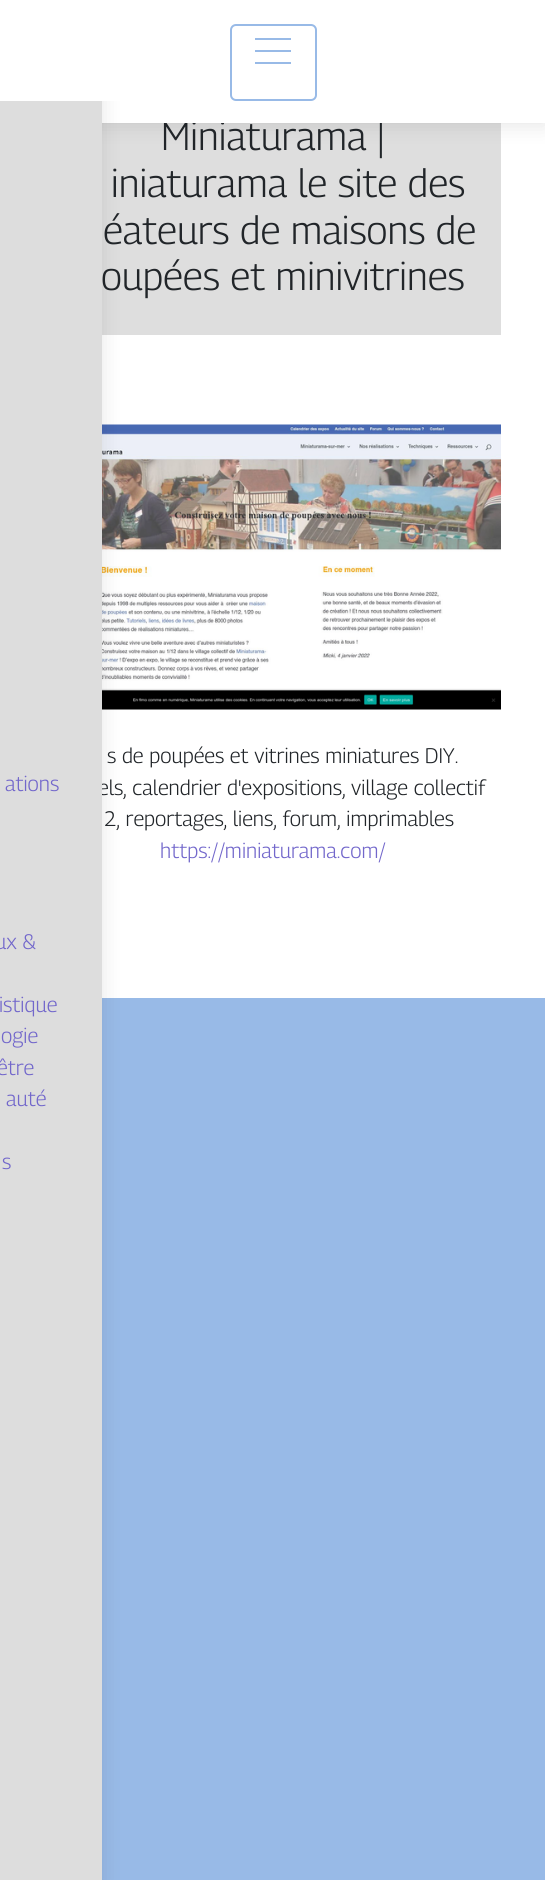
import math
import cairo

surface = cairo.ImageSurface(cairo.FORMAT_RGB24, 545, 1880)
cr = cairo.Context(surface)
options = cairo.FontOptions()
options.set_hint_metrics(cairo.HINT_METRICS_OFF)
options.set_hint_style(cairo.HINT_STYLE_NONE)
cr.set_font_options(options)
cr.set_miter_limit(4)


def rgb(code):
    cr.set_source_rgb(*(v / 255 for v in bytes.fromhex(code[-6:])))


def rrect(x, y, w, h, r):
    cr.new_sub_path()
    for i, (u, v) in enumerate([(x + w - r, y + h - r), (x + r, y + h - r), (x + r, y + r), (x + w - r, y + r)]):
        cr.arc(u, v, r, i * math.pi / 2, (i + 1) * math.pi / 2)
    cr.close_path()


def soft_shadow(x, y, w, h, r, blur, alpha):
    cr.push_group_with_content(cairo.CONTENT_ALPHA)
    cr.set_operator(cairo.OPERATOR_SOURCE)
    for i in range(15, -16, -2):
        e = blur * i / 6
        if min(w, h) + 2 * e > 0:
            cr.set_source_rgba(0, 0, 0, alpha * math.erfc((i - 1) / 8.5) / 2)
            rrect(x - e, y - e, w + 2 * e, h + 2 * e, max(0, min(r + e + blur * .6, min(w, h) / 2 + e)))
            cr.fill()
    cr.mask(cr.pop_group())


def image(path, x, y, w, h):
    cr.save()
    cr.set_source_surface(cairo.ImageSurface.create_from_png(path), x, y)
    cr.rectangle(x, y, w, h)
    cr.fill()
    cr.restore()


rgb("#98bae7")
cr.paint()
rgb("#ffffff")
cr.rectangle(102, 123, 443, 875)
cr.fill()
rgb("#dedede")
cr.rectangle(102, 123, 399, 212)
cr.fill()
image("img/1.png", 102, 424, 399, 286)
rgb("#000000")
soft_shadow(0, 3, 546, 123, 0, 10, 0.1)
cr.select_font_face("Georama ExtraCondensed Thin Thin")
cr.set_font_size(39)
rgb("#212529")
for x, y, s in [
    (161, 150, "Miniaturama |"),
    (111, 197, "iniaturama le site des"),
    (103, 244, "éateurs de maisons de"),
    (101, 290, "oupées et minivitrines"),
]:
    cr.move_to(x, y)
    cr.show_text(s)
cr.set_font_size(21)
for x, y, s in [
    (107, 763, "s de poupées et vitrines miniatures DIY."),
    (98, 795, "els, calendrier d'expositions, village collectif"),
    (104, 826, "2, reportages, liens, forum, imprimables"),
]:
    cr.move_to(x, y)
    cr.show_text(s)
rgb("#7267cb")
cr.move_to(160, 858)
cr.show_text("https://miniaturama.com/")
rgb("#ffffff")
cr.rectangle(102, 101, 443, 22)
cr.fill()
rgb("#000000")
soft_shadow(-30, 3, 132, 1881, 0, 10, 0.1)
rgb("#ffffff")
cr.rectangle(0, 0, 545, 101)
cr.fill()
rrect(231, 25, 85, 75, 5)
rgb("#98bae7")
cr.stroke()
for x, y, w, h, color in [
    (255, 62, 36, 2, "#98bae7"),
    (255, 50, 36, 2, "#98bae7"),
    (255, 38, 36, 2, "#98bae7"),
    (0, 101, 102, 1779, "#dddddd"),
]:
    rgb(color)
    cr.rectangle(x, y, w, h)
    cr.fill()
rgb("#7267cb")
for x, y, s in [
    (5, 791, "ations"),
    (-5, 949, "ux &"),
    (-1, 1012, "istique"),
    (1, 1043, "ogie"),
    (-3, 1075, "être"),
    (6, 1106, "auté"),
    (2, 1169, "s"),
]:
    cr.move_to(x, y)
    cr.show_text(s)
surface.write_to_png("page.png")
